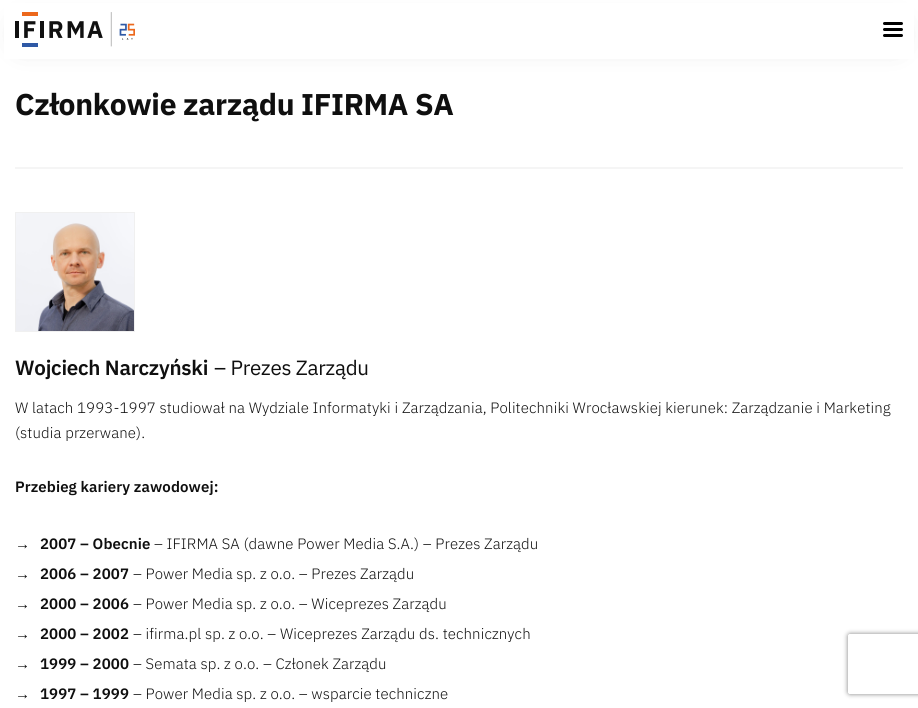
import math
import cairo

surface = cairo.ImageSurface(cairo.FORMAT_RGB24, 918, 708)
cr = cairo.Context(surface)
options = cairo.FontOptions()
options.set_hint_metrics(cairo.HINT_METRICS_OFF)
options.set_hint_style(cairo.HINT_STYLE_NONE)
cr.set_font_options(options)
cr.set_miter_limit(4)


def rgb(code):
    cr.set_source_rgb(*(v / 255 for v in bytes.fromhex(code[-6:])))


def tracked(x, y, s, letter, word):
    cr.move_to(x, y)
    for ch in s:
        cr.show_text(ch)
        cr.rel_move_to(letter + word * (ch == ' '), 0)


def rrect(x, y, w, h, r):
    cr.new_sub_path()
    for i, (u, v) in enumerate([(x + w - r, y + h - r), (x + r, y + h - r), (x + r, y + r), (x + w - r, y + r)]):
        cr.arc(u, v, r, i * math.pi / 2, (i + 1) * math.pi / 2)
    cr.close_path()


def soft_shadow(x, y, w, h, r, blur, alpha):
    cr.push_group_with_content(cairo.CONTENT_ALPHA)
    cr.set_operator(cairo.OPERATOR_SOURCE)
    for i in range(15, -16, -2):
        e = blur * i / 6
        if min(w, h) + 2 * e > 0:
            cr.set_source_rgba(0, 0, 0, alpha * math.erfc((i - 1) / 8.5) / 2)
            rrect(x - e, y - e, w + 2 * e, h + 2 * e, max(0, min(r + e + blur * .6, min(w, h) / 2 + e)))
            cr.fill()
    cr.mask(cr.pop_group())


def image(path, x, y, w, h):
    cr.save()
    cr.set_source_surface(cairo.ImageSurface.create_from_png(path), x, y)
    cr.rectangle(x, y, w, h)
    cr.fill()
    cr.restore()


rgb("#ffffff")
cr.paint()
rgb("#000000")
soft_shadow(20, 25, 878, 19, 0, 15, 0.15)
rgb("#ffffff")
cr.rectangle(4, 3, 910, 56)
cr.fill()
image("img/1.png", 15, 12, 120, 35)
rgb("#000000")
rrect(883, 28, 20, 3, 1.5)
cr.fill()
rrect(883, 22, 20, 3, 1.5)
cr.fill()
rrect(883, 34, 20, 3, 1.5)
cr.fill()
rgb("#f5f5f5")
cr.rectangle(15, 167, 888, 2)
cr.fill()
cr.rectangle(15.5, 212.5, 119, 119)
rgb("#f0f0f0")
cr.set_line_width(1)
cr.stroke()
image("img/2.png", 16, 213, 118, 118)
cr.save()
cr.set_fill_rule(cairo.FILL_RULE_EVEN_ODD)
cr.new_path()
cr.move_to(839, 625)
cr.line_to(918, 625)
cr.line_to(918, 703)
cr.line_to(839, 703)
cr.close_path()
cr.move_to(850, 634)
cr.line_to(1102, 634)
cr.curve_to(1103, 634, 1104, 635, 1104, 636)
cr.line_to(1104, 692)
cr.curve_to(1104, 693, 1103, 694, 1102, 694)
cr.line_to(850, 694)
cr.curve_to(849, 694, 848, 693, 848, 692)
cr.line_to(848, 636)
cr.curve_to(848, 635, 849, 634, 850, 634)
cr.close_path()
cr.clip()
rgb("#808080")
soft_shadow(848, 634, 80, 60, 2, 2.5, 1)
cr.restore()
cr.select_font_face("IBM Plex Sans", cairo.FONT_SLANT_NORMAL, cairo.FONT_WEIGHT_BOLD)
cr.set_font_size(30)
rgb("#0f0f0f")
tracked(15, 115, "Członkowie zarządu IFIRMA SA", -0.3, 0)
cr.select_font_face("IBM Plex Sans SemiBold")
cr.set_font_size(20.6)
tracked(15, 375, "Wojciech Narczyński", -0.25, 0)
cr.select_font_face("IBM Plex Sans")
tracked(214, 375, "– Prezes Zarządu", -0.25, 0)
cr.select_font_face("IBM Plex Sans Light")
cr.set_font_size(15)
tracked(15, 413, "W latach 1993-1997 studiował na Wydziale Informatyki i Zarządzania, Politechniki Wrocławskiej kierunek: Zarządzanie i Marketing", 0.1, 0)
tracked(15, 438, "(studia przerwane).", 0.1, 0)
cr.select_font_face("IBM Plex Sans SemiBold")
tracked(15, 492, "Przebieg kariery zawodowej:", 0.1, 0)
cr.select_font_face("Liberation Sans")
tracked(15, 549, "→", 0.1, 0)
cr.select_font_face("IBM Plex Sans SemiBold")
tracked(40, 549, "2007 – Obecnie", 0.1, 0)
cr.select_font_face("IBM Plex Sans Light")
tracked(154, 549, "– IFIRMA SA (dawne Power Media S.A.) – Prezes Zarządu", 0.1, 0)
cr.select_font_face("Liberation Sans")
tracked(15, 579, "→", 0.1, 0)
cr.select_font_face("IBM Plex Sans SemiBold")
tracked(40, 579, "2006 – 2007", 0.1, 0)
cr.select_font_face("IBM Plex Sans Light")
tracked(133, 579, "– Power Media sp. z o.o. – Prezes Zarządu", 0.1, 0)
cr.select_font_face("Liberation Sans")
tracked(15, 609, "→", 0.1, 0)
cr.select_font_face("IBM Plex Sans SemiBold")
tracked(40, 609, "2000 – 2006", 0.1, 0)
cr.select_font_face("IBM Plex Sans Light")
tracked(133, 609, "– Power Media sp. z o.o. – Wiceprezes Zarządu", 0.1, 0)
cr.select_font_face("Liberation Sans")
tracked(15, 639, "→", 0.1, 0)
cr.select_font_face("IBM Plex Sans SemiBold")
tracked(40, 639, "2000 – 2002", 0.1, 0)
cr.select_font_face("IBM Plex Sans Light")
tracked(133, 639, "– ifirma.pl sp. z o.o. – Wiceprezes Zarządu ds. technicznych", 0.1, 0)
cr.select_font_face("Liberation Sans")
tracked(15, 669, "→", 0.1, 0)
cr.select_font_face("IBM Plex Sans SemiBold")
tracked(40, 669, "1999 – 2000", 0.1, 0)
cr.select_font_face("IBM Plex Sans Light")
tracked(133, 669, "– Semata sp. z o.o. – Członek Zarządu", 0.1, 0)
cr.select_font_face("Liberation Sans")
tracked(15, 699, "→", 0.1, 0)
cr.select_font_face("IBM Plex Sans SemiBold")
tracked(40, 699, "1997 – 1999", 0.1, 0)
cr.select_font_face("IBM Plex Sans Light")
tracked(133, 699, "– Power Media sp. z o.o. – wsparcie techniczne", 0.1, 0)
surface.write_to_png("page.png")
